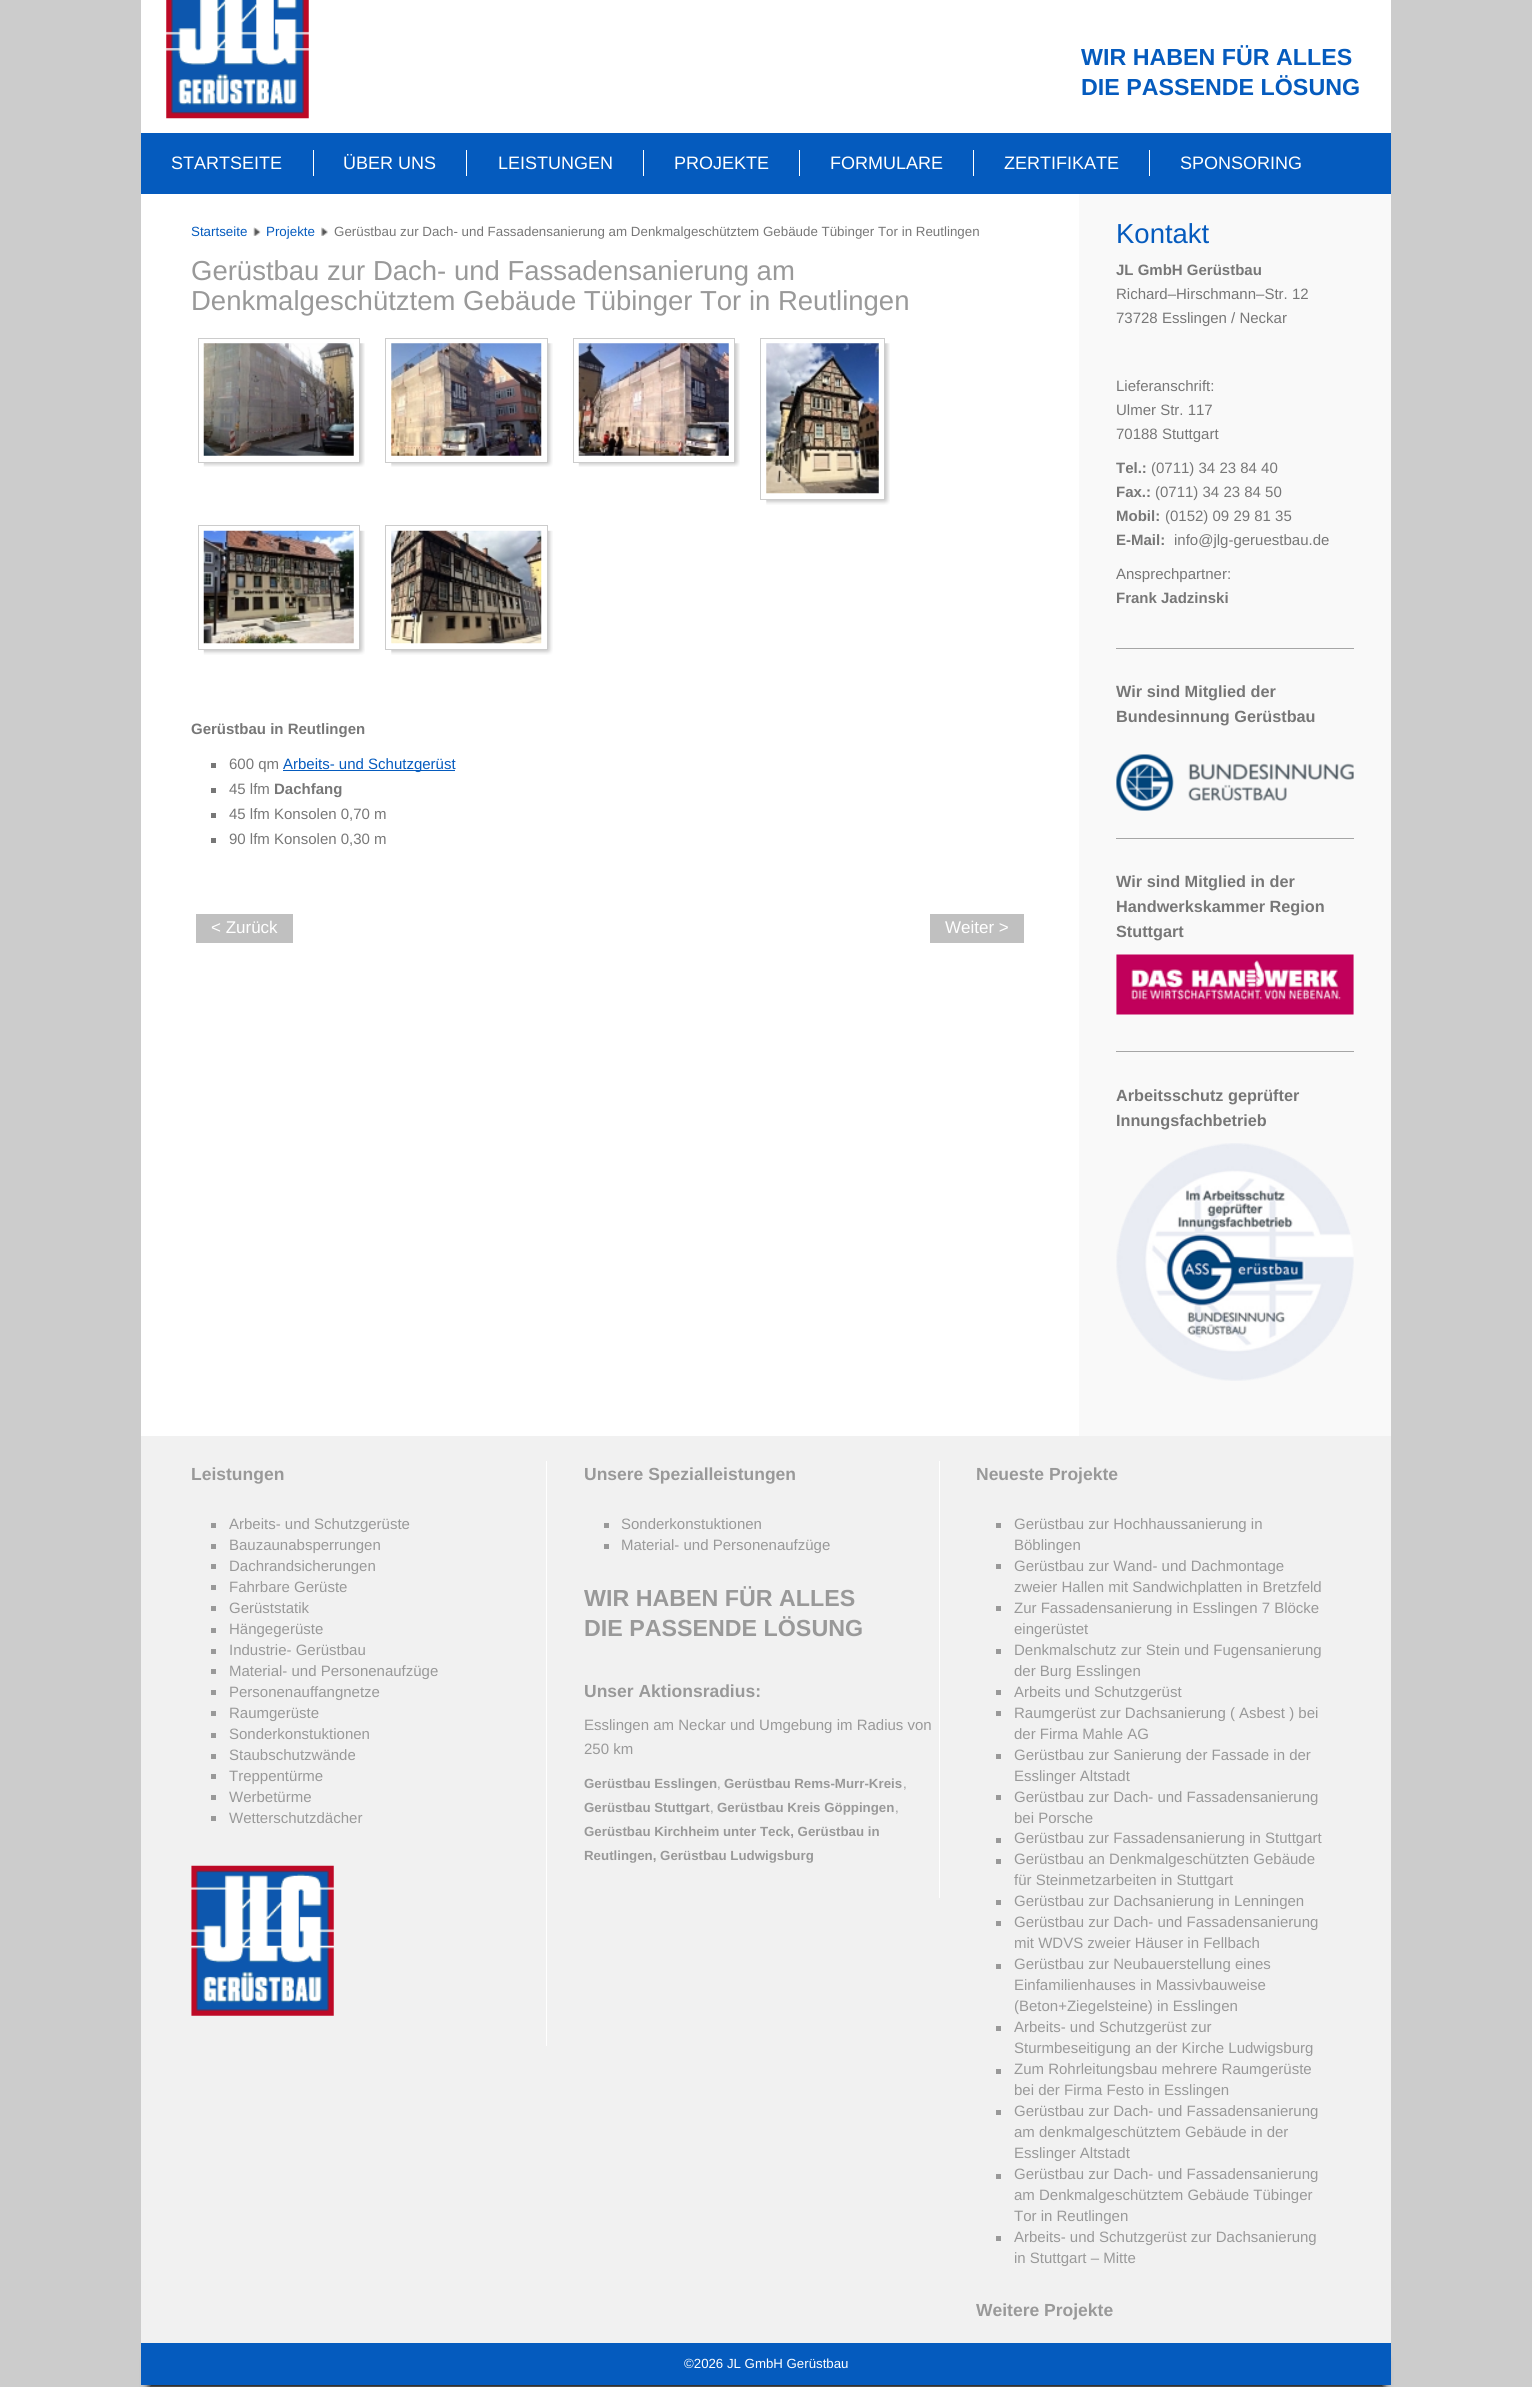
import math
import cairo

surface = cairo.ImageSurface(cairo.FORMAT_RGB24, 1532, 2387)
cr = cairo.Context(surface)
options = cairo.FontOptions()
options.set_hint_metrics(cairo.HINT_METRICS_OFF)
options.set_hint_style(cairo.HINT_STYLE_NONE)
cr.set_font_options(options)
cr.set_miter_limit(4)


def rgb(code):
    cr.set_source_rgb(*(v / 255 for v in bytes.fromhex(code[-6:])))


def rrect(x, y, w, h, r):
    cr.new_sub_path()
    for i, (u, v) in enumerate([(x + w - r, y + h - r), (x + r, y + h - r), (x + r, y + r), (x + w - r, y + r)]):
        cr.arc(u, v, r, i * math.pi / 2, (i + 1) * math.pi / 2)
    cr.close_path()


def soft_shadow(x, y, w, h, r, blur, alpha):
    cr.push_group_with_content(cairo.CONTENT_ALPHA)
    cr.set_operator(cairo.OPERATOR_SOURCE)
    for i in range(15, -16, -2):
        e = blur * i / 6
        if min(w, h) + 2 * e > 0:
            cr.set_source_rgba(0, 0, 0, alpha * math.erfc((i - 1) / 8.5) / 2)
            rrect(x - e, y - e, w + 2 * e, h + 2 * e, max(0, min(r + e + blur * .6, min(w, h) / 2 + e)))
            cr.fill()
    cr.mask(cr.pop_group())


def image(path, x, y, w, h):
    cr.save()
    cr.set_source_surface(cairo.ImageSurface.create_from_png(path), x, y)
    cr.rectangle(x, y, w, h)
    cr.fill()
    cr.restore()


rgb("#cccccc")
cr.paint()
rgb("#ffffff")
cr.rectangle(141, 0, 1250, 133)
cr.fill()
image("img/1.png", 166, 0, 143, 119)
for x, y, w, h, color in [
    (141, 133, 1250, 61, "#055bbe"),
    (313, 150, 1, 26, "#ffffff"),
    (466, 150, 1, 26, "#ffffff"),
    (643, 150, 1, 26, "#ffffff"),
    (799, 150, 1, 26, "#ffffff"),
    (973, 150, 1, 26, "#ffffff"),
    (1149, 150, 1, 26, "#ffffff"),
    (1079, 194, 312, 1242, "#f9f9f9"),
    (141, 194, 938, 1242, "#ffffff"),
]:
    rgb(color)
    cr.rectangle(x, y, w, h)
    cr.fill()
image("img/2.png", 253, 227, 8, 9)
image("img/3.png", 321, 227, 7, 9)
image("img/4.png", 203, 343, 162, 124)
cr.rectangle(203, 343, 156, 119)
cr.fill()
cr.rectangle(198.5, 338.5, 161, 124)
rgb("#cccccc")
cr.set_line_width(1)
cr.stroke()
image("img/5.png", 203, 343, 151, 113)
image("img/6.png", 391, 343, 162, 124)
rgb("#ffffff")
cr.rectangle(391, 343, 156, 119)
cr.fill()
cr.rectangle(385.5, 338.5, 162, 124)
rgb("#cccccc")
cr.stroke()
image("img/7.png", 391, 343, 151, 113)
image("img/8.png", 578, 343, 162, 124)
rgb("#ffffff")
cr.rectangle(578, 343, 156, 119)
cr.fill()
cr.rectangle(573.5, 338.5, 161, 124)
rgb("#cccccc")
cr.stroke()
image("img/9.png", 578, 343, 151, 113)
image("img/10.png", 766, 343, 124, 162)
rgb("#ffffff")
cr.rectangle(766, 343, 118, 156)
cr.fill()
cr.rectangle(760.5, 338.5, 124, 161)
rgb("#cccccc")
cr.stroke()
image("img/11.png", 766, 343, 113, 151)
image("img/12.png", 203, 530, 162, 125)
rgb("#ffffff")
cr.rectangle(203, 530, 156, 119)
cr.fill()
cr.rectangle(198.5, 525.5, 161, 124)
rgb("#cccccc")
cr.stroke()
image("img/13.png", 203, 530, 151, 114)
image("img/14.png", 391, 530, 162, 125)
rgb("#ffffff")
cr.rectangle(391, 530, 156, 119)
cr.fill()
cr.rectangle(385.5, 525.5, 162, 124)
rgb("#cccccc")
cr.stroke()
image("img/15.png", 391, 530, 151, 114)
for x, y, w, h, color in [
    (211, 763, 5, 5, "#777777"),
    (283, 770, 172, 1, "#055bbe"),
    (211, 788, 5, 5, "#777777"),
    (211, 813, 5, 5, "#777777"),
    (211, 838, 5, 5, "#777777"),
    (196, 914, 97, 29, "#c0c0c0"),
    (930, 914, 94, 29, "#c0c0c0"),
    (1116, 648, 238, 1, "#a6a6a6"),
]:
    rgb(color)
    cr.rectangle(x, y, w, h)
    cr.fill()
image("img/16.png", 1116, 754, 238, 57)
cr.rectangle(1116, 838, 238, 1)
cr.fill()
image("img/17.png", 1116, 954, 238, 61)
cr.rectangle(1116, 1051, 238, 1)
cr.fill()
image("img/18.png", 1116, 1143, 238, 238)
for x, y, w, h, color in [
    (141, 1436, 1250, 907, "#f1f1f1"),
    (546, 1461, 1, 585, "#ffffff"),
    (211, 1523, 5, 5, "#999999"),
    (211, 1544, 5, 5, "#999999"),
    (211, 1564, 5, 5, "#999999"),
    (211, 1585, 5, 5, "#999999"),
    (211, 1606, 5, 5, "#999999"),
    (211, 1628, 5, 5, "#999999"),
    (211, 1649, 5, 5, "#999999"),
    (211, 1669, 5, 5, "#999999"),
    (211, 1690, 5, 5, "#999999"),
    (211, 1711, 5, 5, "#999999"),
    (211, 1733, 5, 5, "#999999"),
    (211, 1754, 5, 5, "#999999"),
    (211, 1774, 5, 5, "#999999"),
    (211, 1795, 5, 5, "#999999"),
    (211, 1816, 5, 5, "#999999"),
]:
    rgb(color)
    cr.rectangle(x, y, w, h)
    cr.fill()
image("img/19.png", 191, 1865, 143, 151)
for x, y, w, h, color in [
    (939, 1461, 1, 437, "#ffffff"),
    (604, 1523, 5, 5, "#999999"),
    (604, 1544, 5, 5, "#999999"),
    (996, 1523, 5, 5, "#999999"),
    (996, 1564, 5, 5, "#999999"),
    (996, 1606, 5, 5, "#999999"),
    (996, 1649, 5, 5, "#999999"),
    (996, 1690, 5, 5, "#999999"),
    (996, 1711, 5, 5, "#999999"),
    (996, 1754, 5, 5, "#999999"),
    (996, 1795, 5, 5, "#999999"),
    (996, 1838, 5, 5, "#999999"),
    (996, 1859, 5, 5, "#999999"),
    (996, 1900, 5, 5, "#999999"),
    (996, 1921, 5, 5, "#999999"),
    (996, 1964, 5, 5, "#999999"),
    (996, 2026, 5, 5, "#999999"),
    (996, 2069, 5, 5, "#999999"),
    (996, 2110, 5, 5, "#999999"),
    (996, 2174, 5, 5, "#999999"),
    (996, 2236, 5, 5, "#999999"),
]:
    rgb(color)
    cr.rectangle(x, y, w, h)
    cr.fill()
rgb("#000000")
soft_shadow(149, 2360, 1235, 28, 0, 4, 1)
rgb("#055bbe")
cr.rectangle(141, 2343, 1250, 42)
cr.fill()
cr.select_font_face("Liberation Sans", cairo.FONT_SLANT_NORMAL, cairo.FONT_WEIGHT_BOLD)
cr.set_font_size(23.25)
cr.move_to(1081, 65)
cr.show_text("WIR HABEN FÜR ALLES")
cr.move_to(1081, 95)
cr.show_text("DIE PASSENDE LÖSUNG")
cr.select_font_face("Liberation Sans")
cr.set_font_size(18)
rgb("#ffffff")
for x, y, s in [
    (171, 169, "STARTSEITE"),
    (343, 169, "ÜBER UNS"),
    (498, 169, "LEISTUNGEN"),
    (674, 169, "PROJEKTE"),
    (830, 169, "FORMULARE"),
    (1004, 169, "ZERTIFIKATE"),
    (1180, 169, "SPONSORING"),
]:
    cr.move_to(x, y)
    cr.show_text(s)
cr.set_font_size(13.35)
rgb("#055bbe")
cr.move_to(191, 236)
cr.show_text("Startseite")
cr.move_to(266, 236)
cr.show_text("Projekte")
rgb("#777777")
cr.move_to(334, 236)
cr.show_text("Gerüstbau zur Dach- und Fassadensanierung am Denkmalgeschütztem Gebäude Tübinger Tor in Reutlingen")
cr.set_font_size(27.5)
rgb("#999999")
cr.move_to(191, 280)
cr.show_text("Gerüstbau zur Dach- und Fassadensanierung am")
cr.move_to(191, 310)
cr.show_text("Denkmalgeschütztem Gebäude Tübinger Tor in Reutlingen")
cr.select_font_face("Liberation Sans", cairo.FONT_SLANT_NORMAL, cairo.FONT_WEIGHT_BOLD)
cr.set_font_size(15)
rgb("#777777")
cr.move_to(191, 734)
cr.show_text("Gerüstbau in Reutlingen")
cr.select_font_face("Liberation Sans")
cr.move_to(229, 769)
cr.show_text("600 qm")
rgb("#055bbe")
cr.move_to(283, 769)
cr.show_text("Arbeits- und Schutzgerüst")
rgb("#777777")
cr.move_to(229, 794)
cr.show_text("45 lfm")
cr.select_font_face("Liberation Sans", cairo.FONT_SLANT_NORMAL, cairo.FONT_WEIGHT_BOLD)
cr.move_to(274, 794)
cr.show_text("Dachfang")
cr.select_font_face("Liberation Sans")
cr.move_to(229, 819)
cr.show_text("45 lfm Konsolen 0,70 m")
cr.move_to(229, 844)
cr.show_text("90 lfm Konsolen 0,30 m")
cr.set_font_size(17)
rgb("#ffffff")
cr.move_to(211, 933)
cr.show_text("< Zurück")
cr.move_to(945, 933)
cr.show_text("Weiter >")
cr.set_font_size(27.5)
rgb("#055bbe")
cr.move_to(1116, 243)
cr.show_text("Kontakt")
cr.select_font_face("Liberation Sans", cairo.FONT_SLANT_NORMAL, cairo.FONT_WEIGHT_BOLD)
cr.set_font_size(15)
rgb("#777777")
cr.move_to(1116, 275)
cr.show_text("JL GmbH Gerüstbau")
cr.select_font_face("Liberation Sans")
for x, y, s in [
    (1116, 299, "Richard–Hirschmann–Str. 12"),
    (1116, 323, "73728 Esslingen / Neckar"),
    (1116, 391, "Lieferanschrift:"),
    (1116, 415, "Ulmer Str. 117"),
    (1116, 439, "70188 Stuttgart"),
]:
    cr.move_to(x, y)
    cr.show_text(s)
cr.select_font_face("Liberation Sans", cairo.FONT_SLANT_NORMAL, cairo.FONT_WEIGHT_BOLD)
cr.move_to(1116, 473)
cr.show_text("Tel.:")
cr.select_font_face("Liberation Sans")
cr.move_to(1151, 473)
cr.show_text("(0711) 34 23 84 40")
cr.select_font_face("Liberation Sans", cairo.FONT_SLANT_NORMAL, cairo.FONT_WEIGHT_BOLD)
cr.move_to(1116, 497)
cr.show_text("Fax.:")
cr.select_font_face("Liberation Sans")
cr.move_to(1155, 497)
cr.show_text("(0711) 34 23 84 50")
cr.select_font_face("Liberation Sans", cairo.FONT_SLANT_NORMAL, cairo.FONT_WEIGHT_BOLD)
cr.move_to(1116, 521)
cr.show_text("Mobil:")
cr.select_font_face("Liberation Sans")
cr.move_to(1165, 521)
cr.show_text("(0152) 09 29 81 35")
cr.select_font_face("Liberation Sans", cairo.FONT_SLANT_NORMAL, cairo.FONT_WEIGHT_BOLD)
cr.move_to(1116, 545)
cr.show_text("E-Mail:")
cr.select_font_face("Liberation Sans")
cr.move_to(1174, 545)
cr.show_text("info@jlg-geruestbau.de")
cr.move_to(1116, 579)
cr.show_text("Ansprechpartner:")
cr.select_font_face("Liberation Sans", cairo.FONT_SLANT_NORMAL, cairo.FONT_WEIGHT_BOLD)
cr.move_to(1116, 603)
cr.show_text("Frank Jadzinski")
cr.set_font_size(16.25)
for x, y, s in [
    (1116, 697, "Wir sind Mitglied der"),
    (1116, 722, "Bundesinnung Gerüstbau"),
    (1116, 887, "Wir sind Mitglied in der"),
    (1116, 912, "Handwerkskammer Region"),
    (1116, 937, "Stuttgart"),
    (1116, 1101, "Arbeitsschutz geprüfter"),
    (1116, 1126, "Innungsfachbetrieb"),
]:
    cr.move_to(x, y)
    cr.show_text(s)
cr.set_font_size(17.5)
rgb("#999999")
cr.move_to(191, 1480)
cr.show_text("Leistungen")
cr.select_font_face("Liberation Sans")
cr.set_font_size(15)
for x, y, s in [
    (229, 1529, "Arbeits- und Schutzgerüste"),
    (229, 1550, "Bauzaunabsperrungen"),
    (229, 1571, "Dachrandsicherungen"),
    (229, 1592, "Fahrbare Gerüste"),
    (229, 1613, "Gerüststatik"),
    (229, 1634, "Hängegerüste"),
    (229, 1655, "Industrie- Gerüstbau"),
    (229, 1676, "Material- und Personenaufzüge"),
    (229, 1697, "Personenauffangnetze"),
    (229, 1718, "Raumgerüste"),
    (229, 1739, "Sonderkonstuktionen"),
    (229, 1760, "Staubschutzwände"),
    (229, 1781, "Treppentürme"),
    (229, 1802, "Werbetürme"),
    (229, 1823, "Wetterschutzdächer"),
]:
    cr.move_to(x, y)
    cr.show_text(s)
cr.select_font_face("Liberation Sans", cairo.FONT_SLANT_NORMAL, cairo.FONT_WEIGHT_BOLD)
cr.set_font_size(17.5)
cr.move_to(584, 1480)
cr.show_text("Unsere Spezialleistungen")
cr.select_font_face("Liberation Sans")
cr.set_font_size(15)
cr.move_to(621, 1529)
cr.show_text("Sonderkonstuktionen")
cr.move_to(621, 1550)
cr.show_text("Material- und Personenaufzüge")
cr.select_font_face("Liberation Sans", cairo.FONT_SLANT_NORMAL, cairo.FONT_WEIGHT_BOLD)
cr.set_font_size(23.25)
cr.move_to(584, 1606)
cr.show_text("WIR HABEN FÜR ALLES")
cr.move_to(584, 1636)
cr.show_text("DIE PASSENDE LÖSUNG")
cr.set_font_size(17.5)
cr.move_to(584, 1697)
cr.show_text("Unser Aktionsradius:")
cr.select_font_face("Liberation Sans")
cr.set_font_size(15)
cr.move_to(584, 1730)
cr.show_text("Esslingen am Neckar und Umgebung im Radius von")
cr.move_to(584, 1754)
cr.show_text("250 km")
cr.select_font_face("Liberation Sans", cairo.FONT_SLANT_NORMAL, cairo.FONT_WEIGHT_BOLD)
cr.set_font_size(13.3)
cr.move_to(584, 1788)
cr.show_text("Gerüstbau Esslingen")
cr.select_font_face("Liberation Sans")
cr.move_to(717, 1788)
cr.show_text(",")
cr.select_font_face("Liberation Sans", cairo.FONT_SLANT_NORMAL, cairo.FONT_WEIGHT_BOLD)
cr.move_to(724, 1788)
cr.show_text("Gerüstbau Rems-Murr-Kreis")
cr.select_font_face("Liberation Sans")
cr.move_to(903, 1788)
cr.show_text(",")
cr.select_font_face("Liberation Sans", cairo.FONT_SLANT_NORMAL, cairo.FONT_WEIGHT_BOLD)
cr.move_to(584, 1812)
cr.show_text("Gerüstbau Stuttgart")
cr.select_font_face("Liberation Sans")
cr.move_to(710, 1812)
cr.show_text(",")
cr.select_font_face("Liberation Sans", cairo.FONT_SLANT_NORMAL, cairo.FONT_WEIGHT_BOLD)
cr.move_to(717, 1812)
cr.show_text("Gerüstbau Kreis Göppingen")
cr.select_font_face("Liberation Sans")
cr.move_to(895, 1812)
cr.show_text(",")
cr.select_font_face("Liberation Sans", cairo.FONT_SLANT_NORMAL, cairo.FONT_WEIGHT_BOLD)
cr.move_to(584, 1836)
cr.show_text("Gerüstbau Kirchheim unter Teck, Gerüstbau in")
cr.move_to(584, 1860)
cr.show_text("Reutlingen, Gerüstbau Ludwigsburg")
cr.set_font_size(17.5)
cr.move_to(976, 1480)
cr.show_text("Neueste Projekte")
cr.select_font_face("Liberation Sans")
cr.set_font_size(15)
for x, y, s in [
    (1014, 1529, "Gerüstbau zur Hochhaussanierung in"),
    (1014, 1550, "Böblingen"),
    (1014, 1571, "Gerüstbau zur Wand- und Dachmontage"),
    (1014, 1592, "zweier Hallen mit Sandwichplatten in Bretzfeld"),
    (1014, 1613, "Zur Fassadensanierung in Esslingen 7 Blöcke"),
    (1014, 1634, "eingerüstet"),
    (1014, 1655, "Denkmalschutz zur Stein und Fugensanierung"),
    (1014, 1676, "der Burg Esslingen"),
    (1014, 1697, "Arbeits und Schutzgerüst"),
    (1014, 1718, "Raumgerüst zur Dachsanierung ( Asbest ) bei"),
    (1014, 1739, "der Firma Mahle AG"),
    (1014, 1760, "Gerüstbau zur Sanierung der Fassade in der"),
    (1014, 1781, "Esslinger Altstadt"),
    (1014, 1802, "Gerüstbau zur Dach- und Fassadensanierung"),
    (1014, 1823, "bei Porsche"),
    (1014, 1843, "Gerüstbau zur Fassadensanierung in Stuttgart"),
    (1014, 1864, "Gerüstbau an Denkmalgeschützten Gebäude"),
    (1014, 1885, "für Steinmetzarbeiten in Stuttgart"),
    (1014, 1906, "Gerüstbau zur Dachsanierung in Lenningen"),
    (1014, 1927, "Gerüstbau zur Dach- und Fassadensanierung"),
    (1014, 1948, "mit WDVS zweier Häuser in Fellbach"),
    (1014, 1969, "Gerüstbau zur Neubauerstellung eines"),
    (1014, 1990, "Einfamilienhauses in Massivbauweise"),
    (1014, 2011, "(Beton+Ziegelsteine) in Esslingen"),
    (1014, 2032, "Arbeits- und Schutzgerüst zur"),
    (1014, 2053, "Sturmbeseitigung an der Kirche Ludwigsburg"),
    (1014, 2074, "Zum Rohrleitungsbau mehrere Raumgerüste"),
    (1014, 2095, "bei der Firma Festo in Esslingen"),
    (1014, 2116, "Gerüstbau zur Dach- und Fassadensanierung"),
    (1014, 2137, "am denkmalgeschütztem Gebäude in der"),
    (1014, 2158, "Esslinger Altstadt"),
    (1014, 2179, "Gerüstbau zur Dach- und Fassadensanierung"),
    (1014, 2200, "am Denkmalgeschütztem Gebäude Tübinger"),
    (1014, 2221, "Tor in Reutlingen"),
    (1014, 2242, "Arbeits- und Schutzgerüst zur Dachsanierung"),
    (1014, 2263, "in Stuttgart – Mitte"),
]:
    cr.move_to(x, y)
    cr.show_text(s)
cr.select_font_face("Liberation Sans", cairo.FONT_SLANT_NORMAL, cairo.FONT_WEIGHT_BOLD)
cr.set_font_size(17.5)
cr.move_to(976, 2316)
cr.show_text("Weitere Projekte")
cr.select_font_face("Liberation Sans")
cr.set_font_size(13.25)
rgb("#ffffff")
cr.move_to(684, 2368)
cr.show_text("©2026 JL GmbH Gerüstbau")
surface.write_to_png("page.png")
